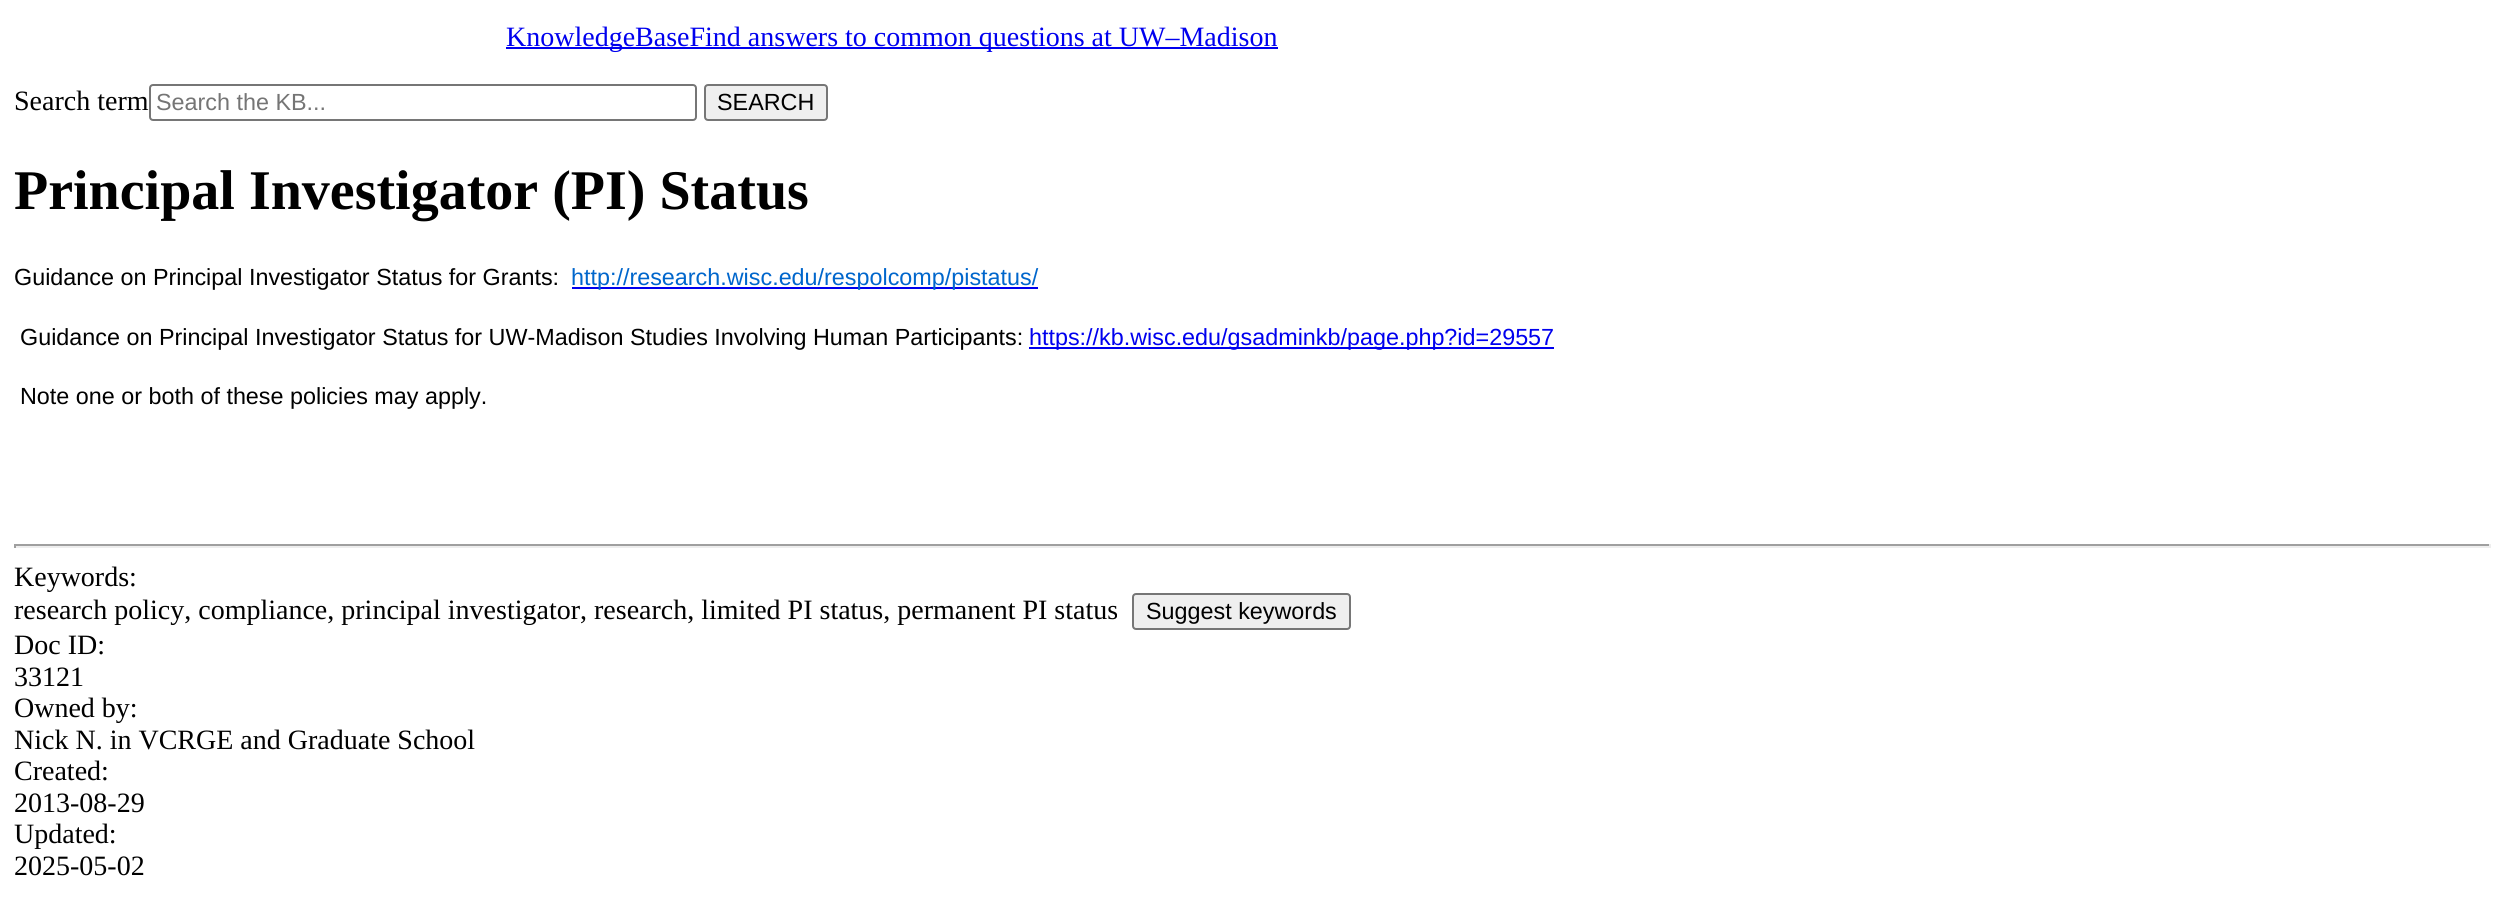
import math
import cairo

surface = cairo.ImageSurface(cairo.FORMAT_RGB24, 2503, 898)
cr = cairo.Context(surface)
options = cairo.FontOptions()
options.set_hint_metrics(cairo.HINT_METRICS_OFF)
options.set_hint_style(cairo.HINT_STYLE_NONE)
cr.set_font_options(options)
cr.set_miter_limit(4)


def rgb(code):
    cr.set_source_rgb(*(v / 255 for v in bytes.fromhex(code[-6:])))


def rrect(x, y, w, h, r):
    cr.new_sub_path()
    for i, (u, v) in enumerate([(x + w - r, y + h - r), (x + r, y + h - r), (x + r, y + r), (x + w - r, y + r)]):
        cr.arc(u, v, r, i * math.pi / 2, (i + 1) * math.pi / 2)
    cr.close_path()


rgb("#ffffff")
cr.paint()
rgb("#0000ee")
cr.rectangle(506, 47, 772, 2)
cr.fill()
rrect(150, 85, 546, 35, 3)
rgb("#767676")
cr.stroke()
rgb("#efefef")
rrect(705, 85, 122, 35, 3)
cr.fill_preserve()
rgb("#767676")
cr.stroke()
for x, y, w, h, color in [
    (572, 287, 466, 2, "#0000ee"),
    (1029, 347, 525, 2, "#0000ee"),
    (14, 544, 2476, 2, "#9f9f9f"),
    (2489, 544, 2, 4, "#eeeeee"),
    (14, 546, 2476, 2, "#eeeeee"),
    (14, 544, 2, 4, "#9f9f9f"),
]:
    rgb(color)
    cr.rectangle(x, y, w, h)
    cr.fill()
rgb("#efefef")
rrect(1133, 594, 217, 35, 3)
cr.fill_preserve()
rgb("#767676")
cr.stroke()
cr.select_font_face("Liberation Serif")
cr.set_font_size(28)
rgb("#0000ee")
cr.move_to(506, 46)
cr.show_text("KnowledgeBaseFind answers to common questions at UW–Madison")
rgb("#000000")
cr.move_to(14, 110)
cr.show_text("Search term")
cr.select_font_face("Liberation Sans")
cr.set_font_size(23.35)
rgb("#757575")
cr.move_to(156, 110)
cr.show_text("Search the KB...")
rgb("#000000")
cr.move_to(717, 110)
cr.show_text("SEARCH")
cr.select_font_face("Liberation Serif", cairo.FONT_SLANT_NORMAL, cairo.FONT_WEIGHT_BOLD)
cr.set_font_size(56)
cr.move_to(14, 209)
cr.show_text("Principal Investigator (PI) Status")
cr.select_font_face("Liberation Sans")
cr.set_font_size(23.35)
cr.move_to(14, 285)
cr.show_text("Guidance on Principal Investigator Status for Grants:")
rgb("#0066cc")
cr.move_to(571, 285)
cr.show_text("http://research.wisc.edu/respolcomp/pistatus/")
rgb("#000000")
cr.move_to(20, 345)
cr.show_text("Guidance on Principal Investigator Status for UW-Madison Studies Involving Human Participants:")
rgb("#0000ee")
cr.move_to(1029, 345)
cr.show_text("https://kb.wisc.edu/gsadminkb/page.php?id=29557")
rgb("#000000")
cr.move_to(20, 404)
cr.show_text("Note one or both of these policies may apply.")
cr.select_font_face("Liberation Serif")
cr.set_font_size(28)
cr.move_to(14, 586)
cr.show_text("Keywords:")
cr.move_to(14, 619)
cr.show_text("research policy, compliance, principal investigator, research, limited PI status, permanent PI status")
cr.select_font_face("Liberation Sans")
cr.set_font_size(23.35)
cr.move_to(1146, 619)
cr.show_text("Suggest keywords")
cr.select_font_face("Liberation Serif")
cr.set_font_size(28)
for x, y, s in [
    (14, 654, "Doc ID:"),
    (14, 686, "33121"),
    (14, 717, "Owned by:"),
    (14, 749, "Nick N. in VCRGE and Graduate School"),
    (14, 780, "Created:"),
    (14, 812, "2013-08-29"),
    (14, 843, "Updated:"),
    (14, 875, "2025-05-02"),
]:
    cr.move_to(x, y)
    cr.show_text(s)
surface.write_to_png("page.png")
